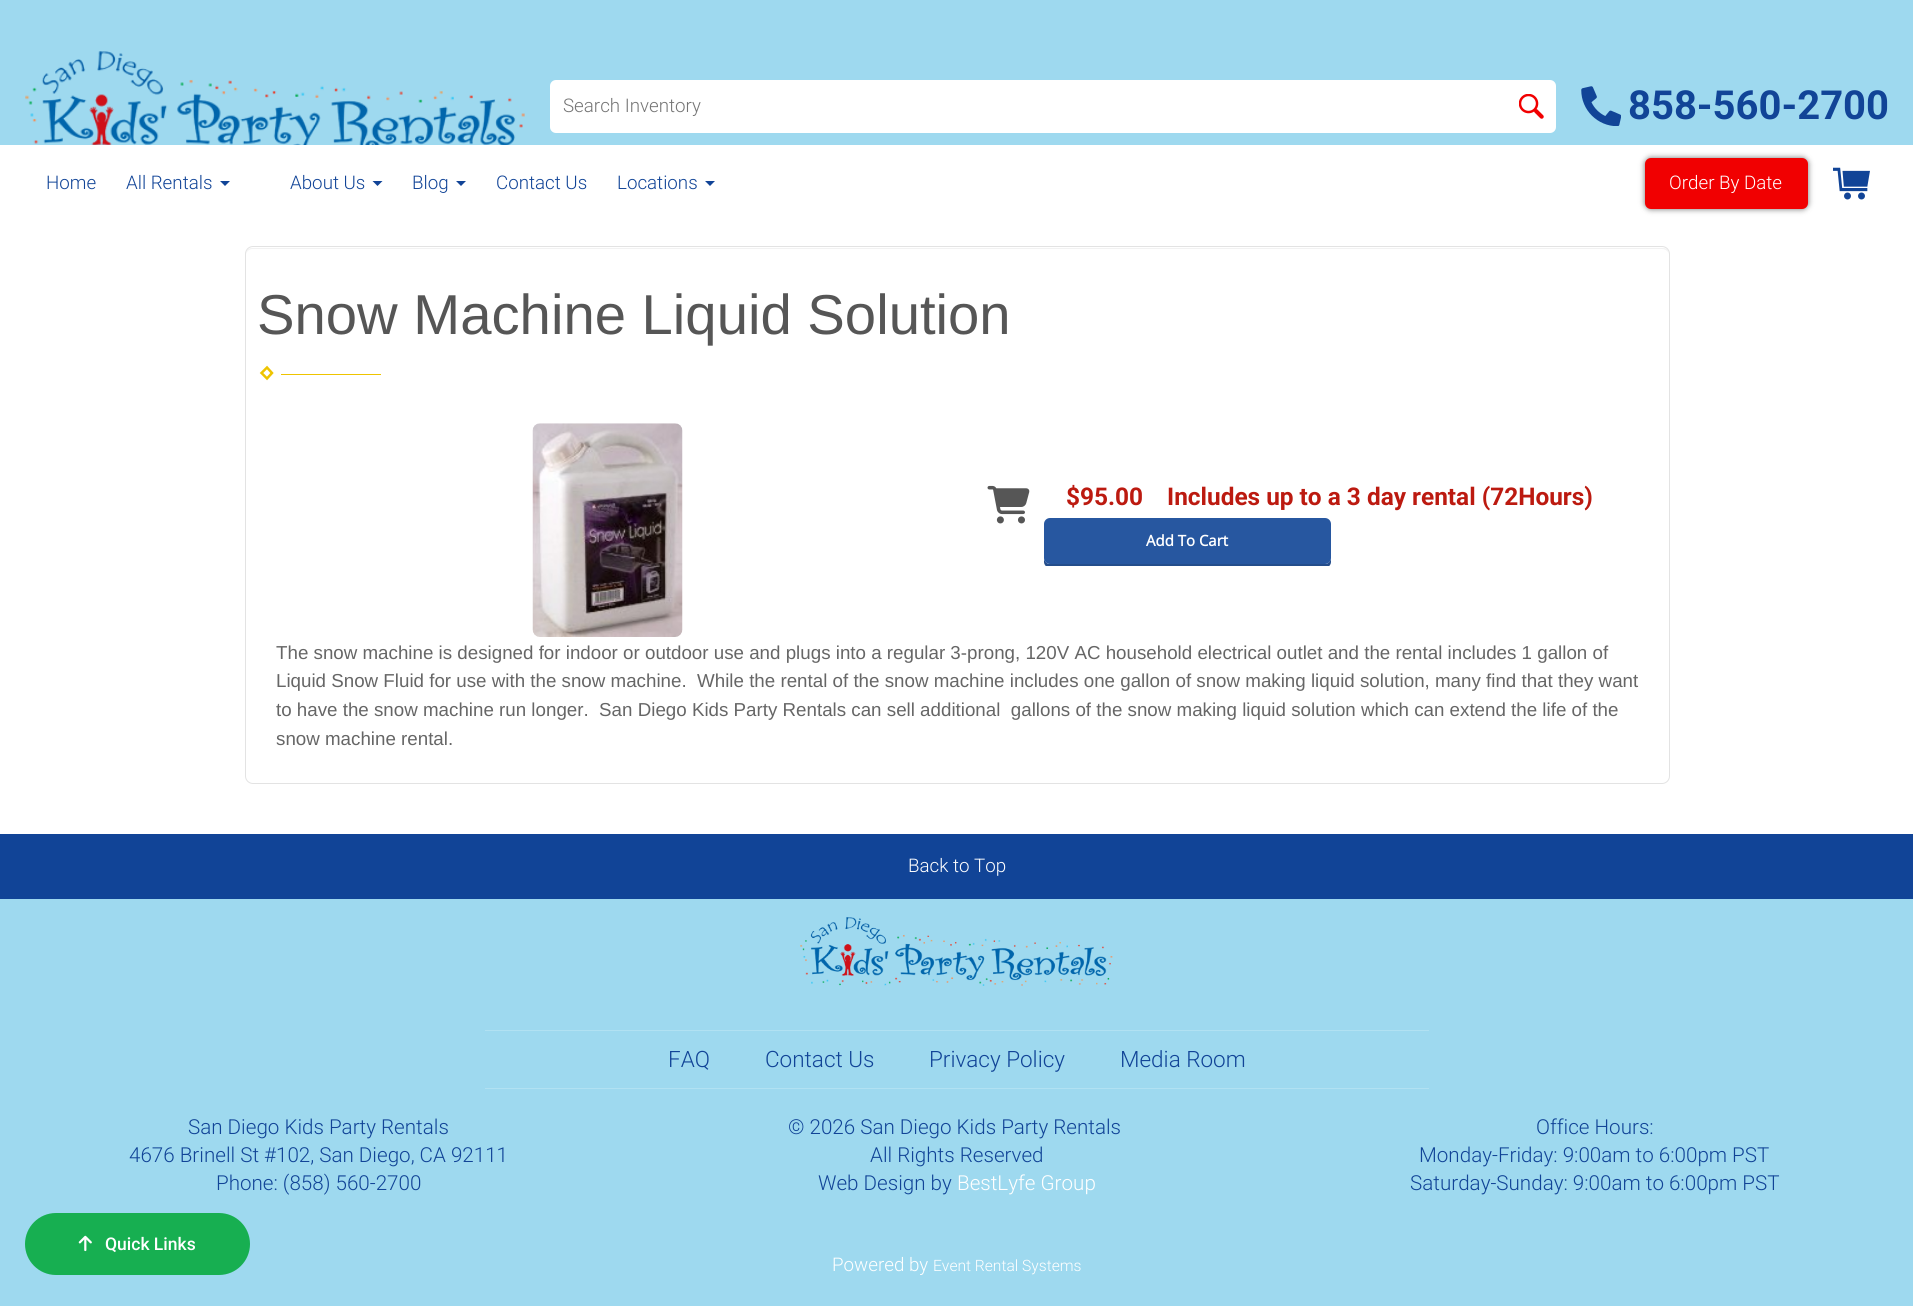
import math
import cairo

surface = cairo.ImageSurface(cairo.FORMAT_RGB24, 1913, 1306)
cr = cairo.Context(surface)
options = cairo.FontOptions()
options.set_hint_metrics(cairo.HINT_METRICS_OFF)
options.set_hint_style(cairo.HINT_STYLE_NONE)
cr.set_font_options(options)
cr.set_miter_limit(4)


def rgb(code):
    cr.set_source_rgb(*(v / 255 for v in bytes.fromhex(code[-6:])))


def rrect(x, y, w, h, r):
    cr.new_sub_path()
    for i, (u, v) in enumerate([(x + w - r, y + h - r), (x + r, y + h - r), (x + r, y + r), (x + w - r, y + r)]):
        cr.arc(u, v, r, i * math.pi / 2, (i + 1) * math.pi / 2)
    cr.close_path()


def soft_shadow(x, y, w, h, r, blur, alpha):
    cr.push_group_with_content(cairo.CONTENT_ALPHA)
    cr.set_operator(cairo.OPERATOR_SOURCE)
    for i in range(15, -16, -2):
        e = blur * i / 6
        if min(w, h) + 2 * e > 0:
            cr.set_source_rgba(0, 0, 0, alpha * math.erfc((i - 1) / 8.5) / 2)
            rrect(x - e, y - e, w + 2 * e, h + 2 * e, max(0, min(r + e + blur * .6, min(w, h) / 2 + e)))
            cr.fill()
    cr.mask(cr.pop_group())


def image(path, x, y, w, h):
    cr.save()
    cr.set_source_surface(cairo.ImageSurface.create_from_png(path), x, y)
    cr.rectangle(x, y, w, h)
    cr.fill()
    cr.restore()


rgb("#ffffff")
cr.paint()
rgb("#9ed9ef")
cr.rectangle(0, 0, 1913, 145)
cr.fill()
image("img/1.png", 25, 51, 500, 94)
rgb("#ffffff")
rrect(550, 80, 1006, 53, 6)
cr.fill()
image("img/2.png", 1519, 94, 25, 25)
image("img/3.png", 1581, 86, 40, 40)
rgb("#114497")
cr.new_path()
cr.move_to(220, 181)
cr.line_to(230, 181)
cr.line_to(225, 186)
cr.close_path()
cr.fill()
cr.new_path()
cr.move_to(372.5, 181)
cr.line_to(382.5, 181)
cr.line_to(377.5, 186)
cr.close_path()
cr.fill()
cr.new_path()
cr.move_to(456, 181)
cr.line_to(466, 181)
cr.line_to(461, 186)
cr.close_path()
cr.fill()
cr.new_path()
cr.move_to(705, 181)
cr.line_to(715, 181)
cr.line_to(710, 186)
cr.close_path()
cr.fill()
rgb("#707070")
soft_shadow(1645, 158, 163, 51, 6, 3, 1)
rgb("#f10001")
rrect(1645, 158, 163, 51, 6)
cr.fill()
image("img/4.png", 1833, 167, 37, 33)
rgb("#f2f2f2")
cr.new_path()
cr.move_to(252, 249)
cr.line_to(1662, 249)
cr.curve_to(1666, 249, 1669, 252, 1669, 255)
cr.curve_to(1669, 251, 1667, 248, 1663, 248)
cr.line_to(252, 248)
cr.curve_to(248, 248, 246, 251, 246, 255)
cr.curve_to(246, 252, 249, 249, 252, 249)
cr.close_path()
cr.fill()
rrect(245.5, 246.5, 1424, 537, 7.5)
rgb("#e3e3e3")
cr.set_line_width(1)
cr.stroke()
cr.new_path()
cr.move_to(267, 367.5)
cr.line_to(272, 373)
cr.line_to(267, 378.5)
cr.line_to(261.5, 373)
cr.close_path()
rgb("#eec400")
cr.set_line_width(2.5)
cr.stroke()
cr.rectangle(281, 374, 100, 1)
cr.fill()
image("img/5.png", 532, 423, 151, 214)
image("img/6.png", 987, 485, 43, 39)
cr.save()
cr.rectangle(1041, 480, 598, 86)
cr.clip()
rgb("#244d8b")
cr.new_path()
cr.move_to(1044, 559)
cr.line_to(1044, 562)
cr.curve_to(1044, 565, 1047, 568, 1050, 568)
cr.line_to(1325, 568)
cr.curve_to(1328, 568, 1331, 565, 1331, 562)
cr.line_to(1331, 559)
cr.curve_to(1330, 562, 1328, 564, 1325, 564)
cr.line_to(1050, 564)
cr.curve_to(1047, 564, 1045, 562, 1044, 559)
cr.close_path()
cr.fill()
cr.restore()
rgb("#2757a0")
rrect(1044, 518, 287, 46, 6)
cr.fill()
rgb("#114497")
cr.rectangle(0, 834, 1913, 65)
cr.fill()
rgb("#9ed9ef")
cr.rectangle(0, 899, 1913, 407)
cr.fill()
image("img/7.png", 800, 917, 313, 69)
rgb("#b1e1f2")
cr.rectangle(485, 1030, 944, 1)
cr.fill()
cr.rectangle(485, 1088, 944, 1)
cr.fill()
rgb("#17af51")
rrect(25, 1213, 225, 62, 31)
cr.fill()
image("img/8.png", 78, 1235, 14, 17)
cr.select_font_face("Roboto Light")
cr.set_font_size(18.75)
rgb("#757575")
cr.move_to(563, 112)
cr.show_text("Search Inventory")
cr.select_font_face("Roboto", cairo.FONT_SLANT_NORMAL, cairo.FONT_WEIGHT_BOLD)
cr.set_font_size(40)
rgb("#114497")
cr.move_to(1628, 119)
cr.show_text("858-560-2700")
cr.select_font_face("Roboto Light")
cr.set_font_size(18.75)
for x, y, s in [
    (46, 189, "Home"),
    (126, 189, "All Rentals"),
    (290, 189, "About Us"),
    (412, 189, "Blog"),
    (496, 189, "Contact Us"),
    (617, 189, "Locations"),
]:
    cr.move_to(x, y)
    cr.show_text(s)
rgb("#ffffff")
cr.move_to(1669, 189)
cr.show_text("Order By Date")
cr.select_font_face("Liberation Sans")
cr.set_font_size(56.25)
rgb("#565656")
cr.move_to(257, 334)
cr.show_text("Snow Machine Liquid Solution")
cr.select_font_face("Roboto", cairo.FONT_SLANT_NORMAL, cairo.FONT_WEIGHT_BOLD)
cr.set_font_size(24.4)
rgb("#bc1a10")
cr.move_to(1066, 505)
cr.show_text("$95.00")
cr.move_to(1167, 505)
cr.show_text("Includes up to a 3 day rental (72Hours)")
cr.select_font_face("Open Sans", cairo.FONT_SLANT_NORMAL, cairo.FONT_WEIGHT_BOLD)
cr.set_font_size(15)
rgb("#ffffff")
cr.move_to(1146, 546)
cr.show_text("Add To Cart")
cr.select_font_face("Liberation Sans")
cr.set_font_size(18.75)
rgb("#666666")
for x, y, s in [
    (276, 659, "The snow machine is designed for indoor or outdoor use and plugs into a regular 3-prong, 120V AC household electrical outlet and the rental includes 1 gallon of"),
    (276, 687, "Liquid Snow Fluid for use with the snow machine.  While the rental of the snow machine includes one gallon of snow making liquid solution, many find that they want"),
    (276, 716, "to have the snow machine run longer.  San Diego Kids Party Rentals can sell additional  gallons of the snow making liquid solution which can extend the life of the"),
    (276, 745, "snow machine rental."),
]:
    cr.move_to(x, y)
    cr.show_text(s)
cr.select_font_face("Roboto Light")
rgb("#ffffff")
cr.move_to(908, 872)
cr.show_text("Back to Top")
cr.set_font_size(22.5)
rgb("#114497")
for x, y, s in [
    (668, 1067, "FAQ"),
    (765, 1067, "Contact Us"),
    (929, 1067, "Privacy Policy"),
    (1120, 1067, "Media Room"),
]:
    cr.move_to(x, y)
    cr.show_text(s)
cr.set_font_size(20.6)
for x, y, s in [
    (188, 1134, "San Diego Kids Party Rentals"),
    (129, 1162, "4676 Brinell St #102, San Diego, CA 92111"),
    (216, 1190, "Phone: (858) 560-2700"),
    (788, 1134, "© 2026 San Diego Kids Party Rentals"),
    (870, 1162, "All Rights Reserved"),
    (818, 1190, "Web Design by"),
]:
    cr.move_to(x, y)
    cr.show_text(s)
rgb("#ffffff")
cr.move_to(957, 1190)
cr.show_text("BestLyfe Group")
rgb("#114497")
for x, y, s in [
    (1536, 1134, "Office Hours:"),
    (1419, 1162, "Monday-Friday: 9:00am to 6:00pm PST"),
    (1410, 1190, "Saturday-Sunday: 9:00am to 6:00pm PST"),
]:
    cr.move_to(x, y)
    cr.show_text(s)
cr.set_font_size(18.75)
rgb("#ffffff")
cr.move_to(832, 1271)
cr.show_text("Powered by")
cr.set_font_size(15.6)
cr.move_to(933, 1271)
cr.show_text("Event Rental Systems")
cr.select_font_face("Roboto Medium")
cr.set_font_size(17.5)
cr.move_to(105, 1250)
cr.show_text("Quick Links")
surface.write_to_png("page.png")
